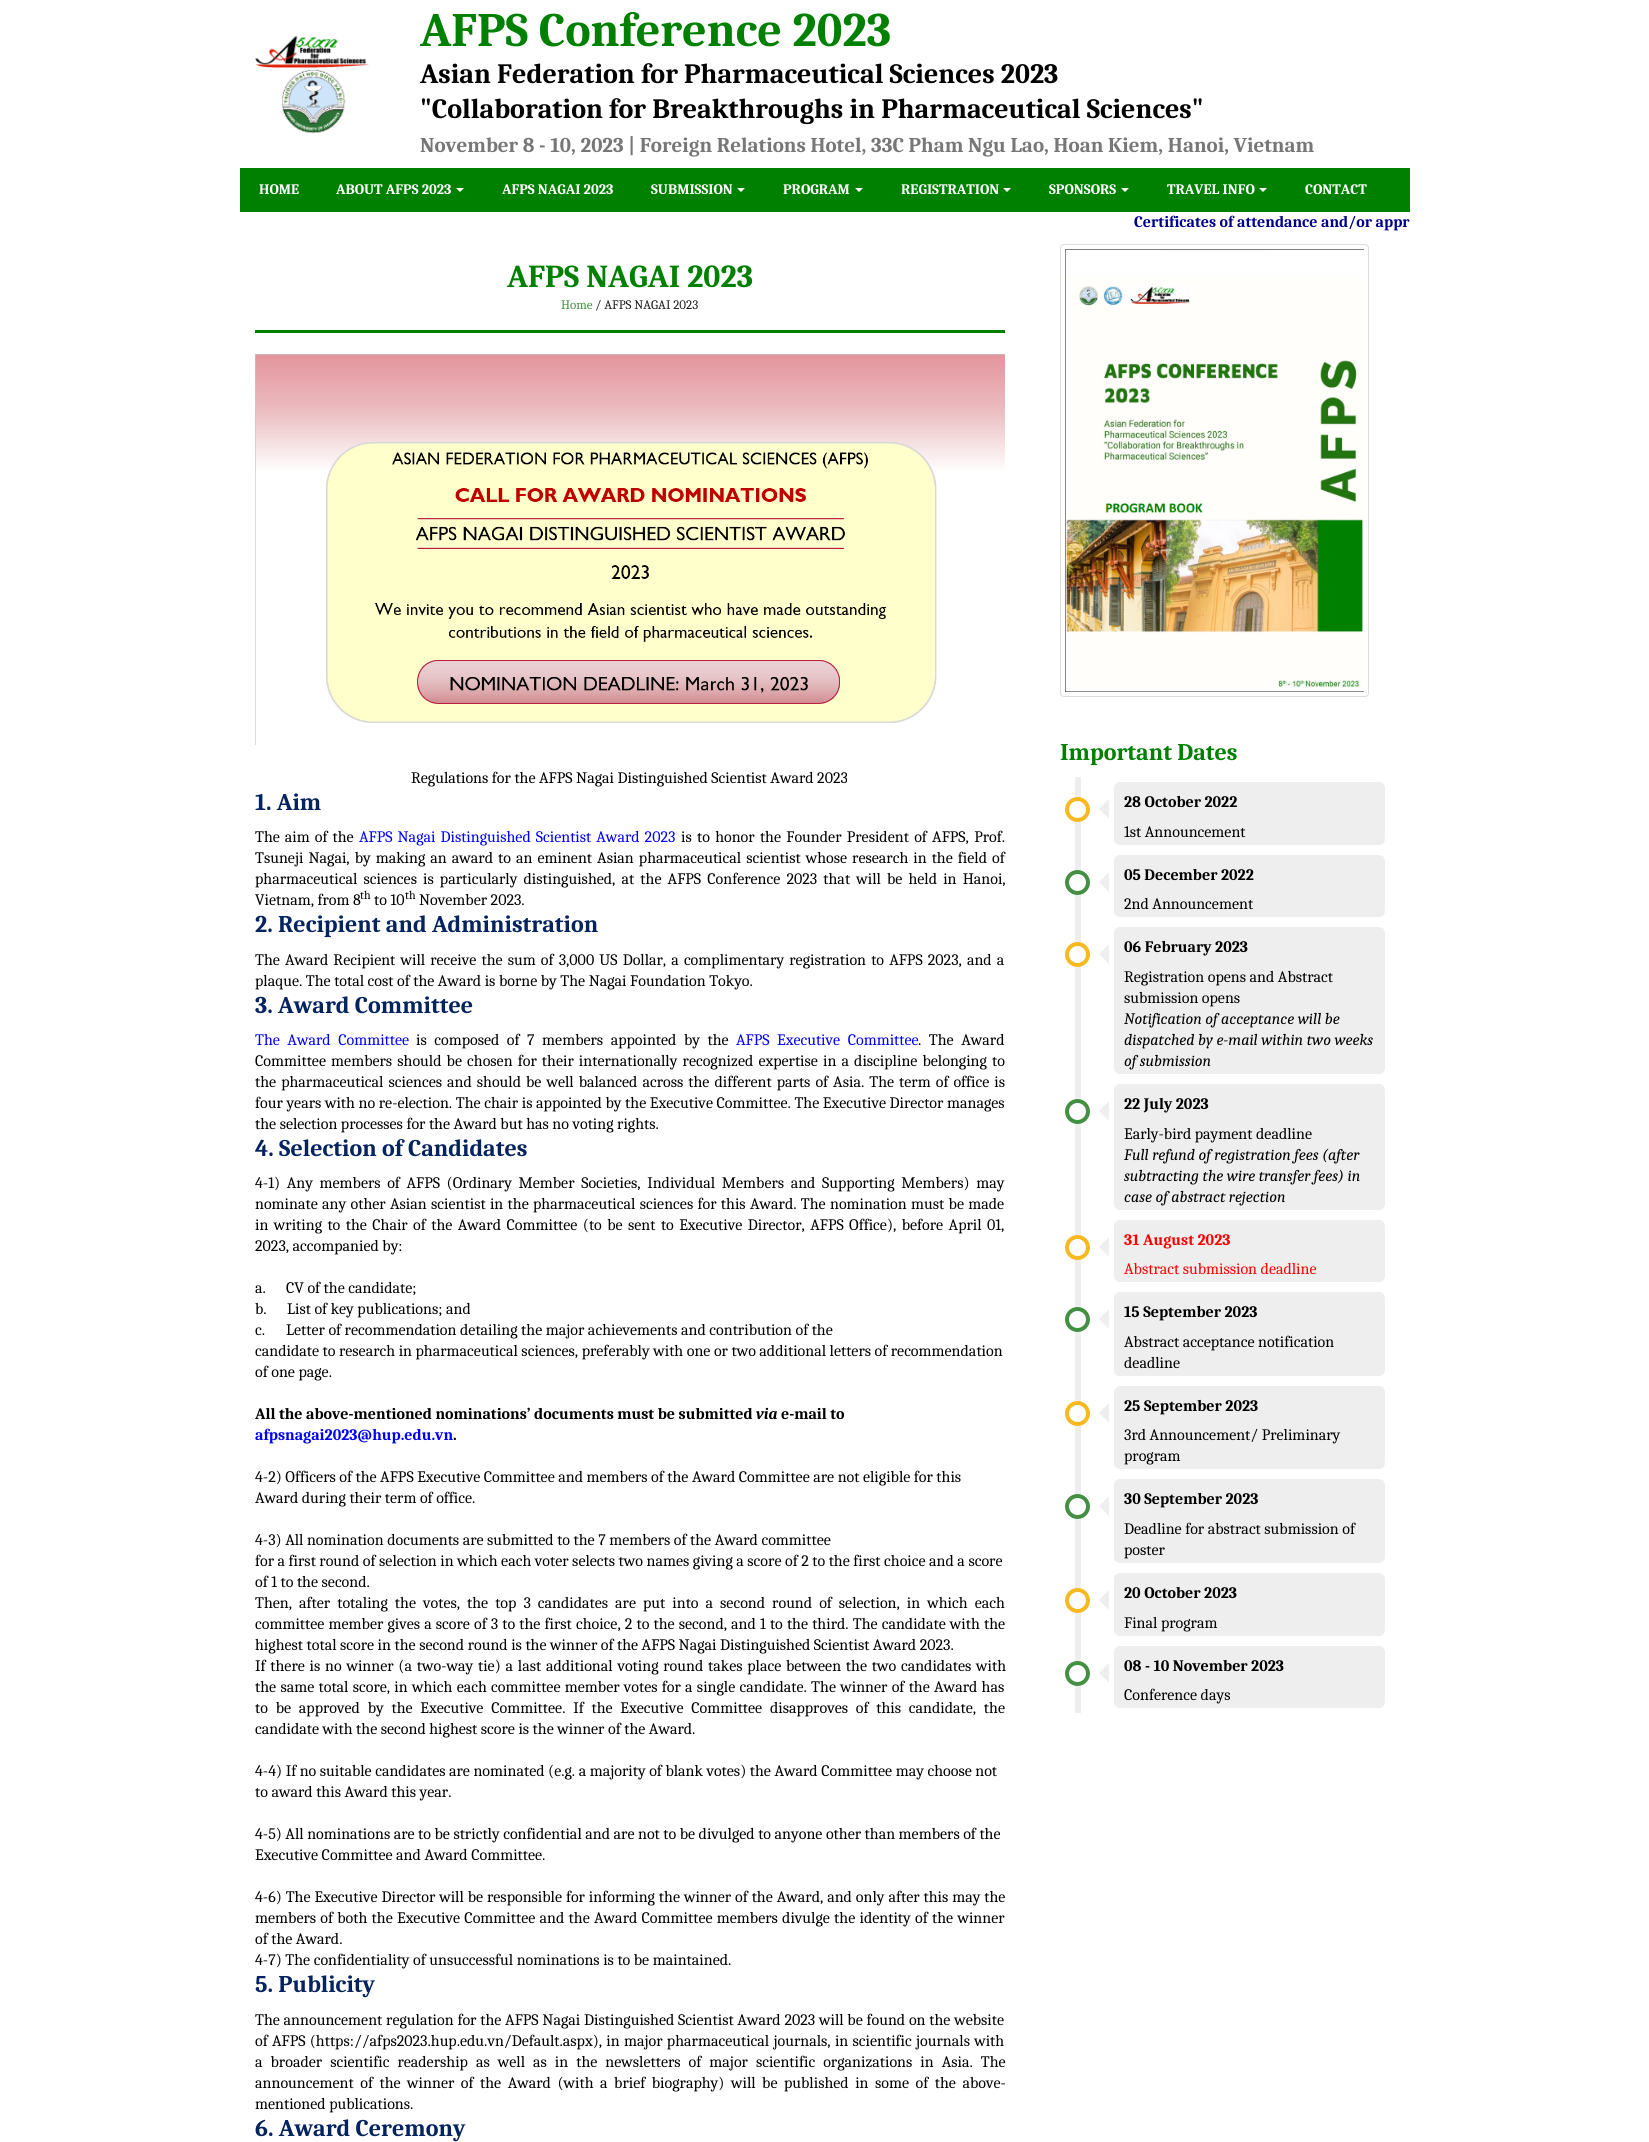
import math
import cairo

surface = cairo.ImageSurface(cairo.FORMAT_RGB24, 1649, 2142)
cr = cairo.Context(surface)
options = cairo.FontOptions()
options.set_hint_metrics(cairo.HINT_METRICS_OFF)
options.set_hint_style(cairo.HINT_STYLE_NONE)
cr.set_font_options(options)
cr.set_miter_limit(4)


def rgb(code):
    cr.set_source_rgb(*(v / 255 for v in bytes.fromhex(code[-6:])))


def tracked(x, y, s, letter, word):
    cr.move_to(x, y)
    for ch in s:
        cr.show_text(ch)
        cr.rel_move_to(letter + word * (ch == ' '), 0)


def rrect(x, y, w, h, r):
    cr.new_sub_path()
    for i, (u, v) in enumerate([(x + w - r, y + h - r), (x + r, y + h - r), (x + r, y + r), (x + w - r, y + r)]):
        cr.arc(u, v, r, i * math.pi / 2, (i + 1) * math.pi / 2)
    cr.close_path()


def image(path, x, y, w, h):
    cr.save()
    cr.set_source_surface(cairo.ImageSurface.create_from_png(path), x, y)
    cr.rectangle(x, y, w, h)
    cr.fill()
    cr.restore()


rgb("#ffffff")
cr.paint()
image("img/1.png", 255, 36, 114, 98)
rgb("#008000")
cr.rectangle(240, 168, 1170, 44)
cr.fill()
rgb("#ffffff")
cr.new_path()
cr.move_to(456, 188)
cr.line_to(464, 188)
cr.line_to(460, 192)
cr.close_path()
cr.fill()
cr.new_path()
cr.move_to(737, 188)
cr.line_to(745, 188)
cr.line_to(741, 192)
cr.close_path()
cr.fill()
cr.new_path()
cr.move_to(855, 188)
cr.line_to(863, 188)
cr.line_to(859, 192)
cr.close_path()
cr.fill()
cr.new_path()
cr.move_to(1003, 188)
cr.line_to(1011, 188)
cr.line_to(1007, 192)
cr.close_path()
cr.fill()
cr.new_path()
cr.move_to(1121, 188)
cr.line_to(1129, 188)
cr.line_to(1125, 192)
cr.close_path()
cr.fill()
cr.new_path()
cr.move_to(1259, 188)
cr.line_to(1267, 188)
cr.line_to(1263, 192)
cr.close_path()
cr.fill()
rgb("#008000")
cr.rectangle(255, 330, 750, 3)
cr.fill()
image("img/2.png", 255, 354, 750, 391)
rrect(1060.5, 244.5, 308, 452, 3.5)
rgb("#dddddd")
cr.set_line_width(1)
cr.stroke()
image("img/3.png", 1065, 249, 299, 443)
rgb("#eeeeee")
cr.rectangle(1075, 777, 6, 936)
cr.fill()
rgb("#ffffff")
cr.arc(1077.5, 809.5, 10.5, 0, 2 * math.pi)
cr.fill_preserve()
rgb("#f7b820")
cr.set_line_width(4)
cr.stroke()
rgb("#eeeeee")
cr.new_path()
cr.move_to(1109, 799)
cr.line_to(1109, 819)
cr.line_to(1099, 809)
cr.close_path()
cr.fill()
rrect(1114, 782, 271, 63, 6)
cr.fill()
rgb("#ffffff")
cr.arc(1077.5, 882.5, 10.5, 0, 2 * math.pi)
cr.fill_preserve()
rgb("#439043")
cr.stroke()
rgb("#eeeeee")
cr.new_path()
cr.move_to(1109, 872)
cr.line_to(1109, 892)
cr.line_to(1099, 882)
cr.close_path()
cr.fill()
rrect(1114, 855, 271, 62, 6)
cr.fill()
rgb("#ffffff")
cr.arc(1077.5, 954.5, 10.5, 0, 2 * math.pi)
cr.fill_preserve()
rgb("#f7b820")
cr.stroke()
rgb("#eeeeee")
cr.new_path()
cr.move_to(1109, 944)
cr.line_to(1109, 964)
cr.line_to(1099, 954)
cr.close_path()
cr.fill()
rrect(1114, 927, 271, 147, 6)
cr.fill()
rgb("#ffffff")
cr.arc(1077.5, 1111.5, 10.5, 0, 2 * math.pi)
cr.fill_preserve()
rgb("#439043")
cr.stroke()
rgb("#eeeeee")
cr.new_path()
cr.move_to(1109, 1101)
cr.line_to(1109, 1121)
cr.line_to(1099, 1111)
cr.close_path()
cr.fill()
rrect(1114, 1084, 271, 126, 6)
cr.fill()
rgb("#ffffff")
cr.arc(1077.5, 1247.5, 10.5, 0, 2 * math.pi)
cr.fill_preserve()
rgb("#f7b820")
cr.stroke()
rgb("#eeeeee")
cr.new_path()
cr.move_to(1109, 1237)
cr.line_to(1109, 1257)
cr.line_to(1099, 1247)
cr.close_path()
cr.fill()
rrect(1114, 1220, 271, 62, 6)
cr.fill()
rgb("#ffffff")
cr.arc(1077.5, 1319.5, 10.5, 0, 2 * math.pi)
cr.fill_preserve()
rgb("#439043")
cr.stroke()
rgb("#eeeeee")
cr.new_path()
cr.move_to(1109, 1309)
cr.line_to(1109, 1329)
cr.line_to(1099, 1319)
cr.close_path()
cr.fill()
rrect(1114, 1292, 271, 84, 6)
cr.fill()
rgb("#ffffff")
cr.arc(1077.5, 1413.5, 10.5, 0, 2 * math.pi)
cr.fill_preserve()
rgb("#f7b820")
cr.stroke()
rgb("#eeeeee")
cr.new_path()
cr.move_to(1109, 1403)
cr.line_to(1109, 1423)
cr.line_to(1099, 1413)
cr.close_path()
cr.fill()
rrect(1114, 1386, 271, 83, 6)
cr.fill()
rgb("#ffffff")
cr.arc(1077.5, 1506.5, 10.5, 0, 2 * math.pi)
cr.fill_preserve()
rgb("#439043")
cr.stroke()
rgb("#eeeeee")
cr.new_path()
cr.move_to(1109, 1496)
cr.line_to(1109, 1516)
cr.line_to(1099, 1506)
cr.close_path()
cr.fill()
rrect(1114, 1479, 271, 84, 6)
cr.fill()
rgb("#ffffff")
cr.arc(1077.5, 1600.5, 10.5, 0, 2 * math.pi)
cr.fill_preserve()
rgb("#f7b820")
cr.stroke()
rgb("#eeeeee")
cr.new_path()
cr.move_to(1109, 1590)
cr.line_to(1109, 1610)
cr.line_to(1099, 1600)
cr.close_path()
cr.fill()
rrect(1114, 1573, 271, 63, 6)
cr.fill()
rgb("#ffffff")
cr.arc(1077.5, 1673.5, 10.5, 0, 2 * math.pi)
cr.fill_preserve()
rgb("#439043")
cr.stroke()
rgb("#eeeeee")
cr.new_path()
cr.move_to(1109, 1663)
cr.line_to(1109, 1683)
cr.line_to(1099, 1673)
cr.close_path()
cr.fill()
rrect(1114, 1646, 271, 62, 6)
cr.fill()
cr.select_font_face("Caladea", cairo.FONT_SLANT_NORMAL, cairo.FONT_WEIGHT_BOLD)
cr.set_font_size(48)
rgb("#008000")
cr.move_to(420, 46)
cr.show_text("AFPS Conference 2023")
cr.set_font_size(28)
rgb("#000000")
cr.move_to(420, 83)
cr.show_text("Asian Federation for Pharmaceutical Sciences 2023")
cr.move_to(420, 118)
cr.show_text("\"Collaboration for Breakthroughs in Pharmaceutical Sciences\"")
cr.set_font_size(21)
rgb("#777777")
cr.move_to(420, 152)
cr.show_text("November 8 - 10, 2023 | Foreign Relations Hotel, 33C Pham Ngu Lao, Hoan Kiem, Hanoi, Vietnam")
cr.set_font_size(14.5)
rgb("#ffffff")
for x, y, s in [
    (259, 194, "HOME"),
    (336, 194, "ABOUT AFPS 2023"),
    (502, 194, "AFPS NAGAI 2023"),
    (651, 194, "SUBMISSION"),
    (783, 194, "PROGRAM"),
    (901, 194, "REGISTRATION"),
    (1049, 194, "SPONSORS"),
    (1167, 194, "TRAVEL INFO"),
    (1305, 194, "CONTACT"),
]:
    cr.move_to(x, y)
    cr.show_text(s)
cr.set_font_size(16)
rgb("#00008b")
cr.move_to(1134, 227)
cr.show_text("Certificates of attendance and/or appr")
cr.set_font_size(32)
rgb("#008000")
cr.move_to(507, 287)
cr.show_text("AFPS NAGAI 2023")
cr.select_font_face("Caladea")
cr.set_font_size(13)
rgb("#439043")
cr.move_to(561, 309)
cr.show_text("Home")
rgb("#1e1e1e")
cr.move_to(595, 309)
cr.show_text("/ AFPS NAGAI 2023")
cr.set_font_size(16)
rgb("#000000")
cr.move_to(411, 783)
cr.show_text("Regulations for the AFPS Nagai Distinguished Scientist Award 2023")
cr.select_font_face("Caladea", cairo.FONT_SLANT_NORMAL, cairo.FONT_WEIGHT_BOLD)
cr.set_font_size(24)
rgb("#05235f")
cr.move_to(255, 810)
cr.show_text("1. Aim")
cr.select_font_face("Caladea")
cr.set_font_size(16)
rgb("#000000")
tracked(255, 842, "The aim of the", 0, 1.5)
rgb("#0000ff")
tracked(359, 842, "AFPS Nagai Distinguished Scientist Award 2023", 0, 1.5)
rgb("#000000")
tracked(681, 842, "is to honor the Founder President of AFPS, Prof.", 0, 1.75)
tracked(255, 863, "Tsuneji Nagai, by making an award to an eminent Asian pharmaceutical scientist whose research in the field of", 0, 1.5)
tracked(255, 884, "pharmaceutical sciences is particularly distinguished, at the AFPS Conference 2023 that will be held in Hanoi,", 0, 2.6)
cr.move_to(255, 905)
cr.show_text("Vietnam, from 8")
cr.set_font_size(12)
cr.move_to(360, 899)
cr.show_text("th")
cr.set_font_size(16)
cr.move_to(374, 905)
cr.show_text("to 10")
cr.set_font_size(12)
cr.move_to(405, 899)
cr.show_text("th")
cr.set_font_size(16)
cr.move_to(419, 905)
cr.show_text("November 2023.")
cr.select_font_face("Caladea", cairo.FONT_SLANT_NORMAL, cairo.FONT_WEIGHT_BOLD)
cr.set_font_size(24)
rgb("#05235f")
cr.move_to(255, 932)
cr.show_text("2. Recipient and Administration")
cr.select_font_face("Caladea")
cr.set_font_size(16)
rgb("#000000")
tracked(255, 965, "The Award Recipient will receive the sum of 3,000 US Dollar, a complimentary registration to AFPS 2023, and a", 0, 1.6)
cr.move_to(255, 986)
cr.show_text("plaque. The total cost of the Award is borne by The Nagai Foundation Tokyo.")
cr.select_font_face("Caladea", cairo.FONT_SLANT_NORMAL, cairo.FONT_WEIGHT_BOLD)
cr.set_font_size(24)
rgb("#05235f")
cr.move_to(255, 1013)
cr.show_text("3. Award Committee")
cr.select_font_face("Caladea")
cr.set_font_size(16)
rgb("#0000ff")
tracked(255, 1045, "The Award Committee", 0, 4)
rgb("#000000")
tracked(416, 1045, "is composed of 7 members appointed by the", 0, 4)
rgb("#0000ff")
tracked(736, 1045, "AFPS Executive Committee", 0, 4)
rgb("#000000")
tracked(918, 1045, ". The Award", 0, 4)
tracked(255, 1066, "Committee members should be chosen for their internationally recognized expertise in a discipline belonging to", 0, 1.6)
tracked(255, 1087, "the pharmaceutical sciences and should be well balanced across the different parts of Asia. The term of office is", 0, 1.5)
tracked(255, 1108, "four years with no re-election. The chair is appointed by the Executive Committee. The Executive Director manages", 0, 0.1)
cr.move_to(255, 1129)
cr.show_text("the selection processes for the Award but has no voting rights.")
cr.select_font_face("Caladea", cairo.FONT_SLANT_NORMAL, cairo.FONT_WEIGHT_BOLD)
cr.set_font_size(24)
rgb("#05235f")
cr.move_to(255, 1156)
cr.show_text("4. Selection of Candidates")
cr.select_font_face("Caladea")
cr.set_font_size(16)
rgb("#000000")
tracked(255, 1188, "4-1) Any members of AFPS (Ordinary Member Societies, Individual Members and Supporting Members) may", 0, 3.1)
tracked(255, 1209, "nominate any other Asian scientist in the pharmaceutical sciences for this Award. The nomination must be made", 0, 0.8)
tracked(255, 1230, "in writing to the Chair of the Award Committee (to be sent to Executive Director, AFPS Office), before April 01,", 0, 1.9)
for x, y, s in [
    (255, 1251, "2023, accompanied by:"),
    (255, 1293, "a."),
    (286, 1293, "CV of the candidate;"),
    (255, 1314, "b."),
    (287, 1314, "List of key publications; and"),
    (255, 1335, "c."),
    (286, 1335, "Letter of recommendation detailing the major achievements and contribution of the"),
    (255, 1356, "candidate to research in pharmaceutical sciences, preferably with one or two additional letters of recommendation"),
    (255, 1377, "of one page."),
]:
    cr.move_to(x, y)
    cr.show_text(s)
cr.select_font_face("Caladea", cairo.FONT_SLANT_NORMAL, cairo.FONT_WEIGHT_BOLD)
cr.move_to(255, 1419)
cr.show_text("All the above-mentioned nominations’ documents must be submitted")
cr.select_font_face("Caladea", cairo.FONT_SLANT_ITALIC, cairo.FONT_WEIGHT_BOLD)
cr.move_to(756, 1419)
cr.show_text("via")
cr.select_font_face("Caladea", cairo.FONT_SLANT_NORMAL, cairo.FONT_WEIGHT_BOLD)
cr.move_to(781, 1419)
cr.show_text("e-mail to")
rgb("#0000ff")
cr.move_to(255, 1440)
cr.show_text("afpsnagai2023@hup.edu.vn")
rgb("#000000")
cr.move_to(453, 1440)
cr.show_text(".")
cr.select_font_face("Caladea")
for x, y, s in [
    (255, 1482, "4-2) Officers of the AFPS Executive Committee and members of the Award Committee are not eligible for this"),
    (255, 1503, "Award during their term of office."),
    (255, 1545, "4-3) All nomination documents are submitted to the 7 members of the Award committee"),
    (255, 1566, "for a first round of selection in which each voter selects two names giving a score of 2 to the first choice and a score"),
    (255, 1587, "of 1 to the second."),
]:
    cr.move_to(x, y)
    cr.show_text(s)
tracked(255, 1608, "Then, after totaling the votes, the top 3 candidates are put into a second round of selection, in which each", 0, 3.5)
tracked(255, 1629, "committee member gives a score of 3 to the first choice, 2 to the second, and 1 to the third. The candidate with the", 0, 0.6)
cr.move_to(255, 1650)
cr.show_text("highest total score in the second round is the winner of the AFPS Nagai Distinguished Scientist Award 2023.")
tracked(255, 1671, "If there is no winner (a two-way tie) a last additional voting round takes place between the two candidates with", 0, 1.25)
tracked(255, 1692, "the same total score, in which each committee member votes for a single candidate. The winner of the Award has", 0, 0.75)
tracked(255, 1713, "to be approved by the Executive Committee. If the Executive Committee disapproves of this candidate, the", 0, 4.25)
for x, y, s in [
    (255, 1734, "candidate with the second highest score is the winner of the Award."),
    (255, 1776, "4-4) If no suitable candidates are nominated (e.g. a majority of blank votes) the Award Committee may choose not"),
    (255, 1797, "to award this Award this year."),
    (255, 1839, "4-5) All nominations are to be strictly confidential and are not to be divulged to anyone other than members of the"),
    (255, 1860, "Executive Committee and Award Committee."),
]:
    cr.move_to(x, y)
    cr.show_text(s)
tracked(255, 1902, "4-6) The Executive Director will be responsible for informing the winner of the Award, and only after this may the", 0, 0.4)
tracked(255, 1923, "members of both the Executive Committee and the Award Committee members divulge the identity of the winner", 0, 0.75)
cr.move_to(255, 1944)
cr.show_text("of the Award.")
cr.move_to(255, 1965)
cr.show_text("4-7) The confidentiality of unsuccessful nominations is to be maintained.")
cr.select_font_face("Caladea", cairo.FONT_SLANT_NORMAL, cairo.FONT_WEIGHT_BOLD)
cr.set_font_size(24)
rgb("#05235f")
cr.move_to(255, 1992)
cr.show_text("5. Publicity")
cr.select_font_face("Caladea")
cr.set_font_size(16)
rgb("#000000")
tracked(255, 2025, "The announcement regulation for the AFPS Nagai Distinguished Scientist Award 2023 will be found on the website", 0, 0.25)
tracked(255, 2046, "of AFPS (https://afps2023.hup.edu.vn/Default.aspx), in major pharmaceutical journals, in scientific journals with", 0, 0.75)
tracked(255, 2067, "a broader scientific readership as well as in the newsletters of major scientific organizations in Asia. The", 0, 4.5)
tracked(255, 2088, "announcement of the winner of the Award (with a brief biography) will be published in some of the above-", 0, 3)
cr.move_to(255, 2109)
cr.show_text("mentioned publications.")
cr.select_font_face("Caladea", cairo.FONT_SLANT_NORMAL, cairo.FONT_WEIGHT_BOLD)
cr.set_font_size(24)
rgb("#05235f")
cr.move_to(255, 2136)
cr.show_text("6. Award Ceremony")
rgb("#008000")
cr.move_to(1060, 760)
cr.show_text("Important Dates")
cr.set_font_size(16)
rgb("#000000")
cr.move_to(1124, 807)
cr.show_text("28 October 2022")
cr.select_font_face("Caladea")
cr.move_to(1124, 837)
cr.show_text("1st Announcement")
cr.select_font_face("Caladea", cairo.FONT_SLANT_NORMAL, cairo.FONT_WEIGHT_BOLD)
cr.move_to(1124, 880)
cr.show_text("05 December 2022")
cr.select_font_face("Caladea")
cr.move_to(1124, 909)
cr.show_text("2nd Announcement")
cr.select_font_face("Caladea", cairo.FONT_SLANT_NORMAL, cairo.FONT_WEIGHT_BOLD)
cr.move_to(1124, 952)
cr.show_text("06 February 2023")
cr.select_font_face("Caladea")
cr.move_to(1124, 982)
cr.show_text("Registration opens and Abstract")
cr.move_to(1124, 1003)
cr.show_text("submission opens")
cr.select_font_face("Caladea", cairo.FONT_SLANT_ITALIC)
for x, y, s in [
    (1124, 1024, "Notification of acceptance will be"),
    (1124, 1045, "dispatched by e-mail within two weeks"),
    (1124, 1066, "of submission"),
]:
    cr.move_to(x, y)
    cr.show_text(s)
cr.select_font_face("Caladea", cairo.FONT_SLANT_NORMAL, cairo.FONT_WEIGHT_BOLD)
cr.move_to(1124, 1109)
cr.show_text("22 July 2023")
cr.select_font_face("Caladea")
cr.move_to(1124, 1139)
cr.show_text("Early-bird payment deadline")
cr.select_font_face("Caladea", cairo.FONT_SLANT_ITALIC)
for x, y, s in [
    (1124, 1160, "Full refund of registration fees (after"),
    (1124, 1181, "subtracting the wire transfer fees) in"),
    (1124, 1202, "case of abstract rejection"),
]:
    cr.move_to(x, y)
    cr.show_text(s)
cr.select_font_face("Caladea", cairo.FONT_SLANT_NORMAL, cairo.FONT_WEIGHT_BOLD)
rgb("#ff0000")
cr.move_to(1124, 1245)
cr.show_text("31 August 2023")
cr.select_font_face("Caladea")
cr.move_to(1124, 1274)
cr.show_text("Abstract submission deadline")
cr.select_font_face("Caladea", cairo.FONT_SLANT_NORMAL, cairo.FONT_WEIGHT_BOLD)
rgb("#000000")
cr.move_to(1124, 1317)
cr.show_text("15 September 2023")
cr.select_font_face("Caladea")
cr.move_to(1124, 1347)
cr.show_text("Abstract acceptance notification")
cr.move_to(1124, 1368)
cr.show_text("deadline")
cr.select_font_face("Caladea", cairo.FONT_SLANT_NORMAL, cairo.FONT_WEIGHT_BOLD)
cr.move_to(1124, 1411)
cr.show_text("25 September 2023")
cr.select_font_face("Caladea")
cr.move_to(1124, 1440)
cr.show_text("3rd Announcement/ Preliminary")
cr.move_to(1124, 1461)
cr.show_text("program")
cr.select_font_face("Caladea", cairo.FONT_SLANT_NORMAL, cairo.FONT_WEIGHT_BOLD)
cr.move_to(1124, 1504)
cr.show_text("30 September 2023")
cr.select_font_face("Caladea")
cr.move_to(1124, 1534)
cr.show_text("Deadline for abstract submission of")
cr.move_to(1124, 1555)
cr.show_text("poster")
cr.select_font_face("Caladea", cairo.FONT_SLANT_NORMAL, cairo.FONT_WEIGHT_BOLD)
cr.move_to(1124, 1598)
cr.show_text("20 October 2023")
cr.select_font_face("Caladea")
cr.move_to(1124, 1628)
cr.show_text("Final program")
cr.select_font_face("Caladea", cairo.FONT_SLANT_NORMAL, cairo.FONT_WEIGHT_BOLD)
cr.move_to(1124, 1671)
cr.show_text("08 - 10 November 2023")
cr.select_font_face("Caladea")
cr.move_to(1124, 1700)
cr.show_text("Conference days")
surface.write_to_png("page.png")
